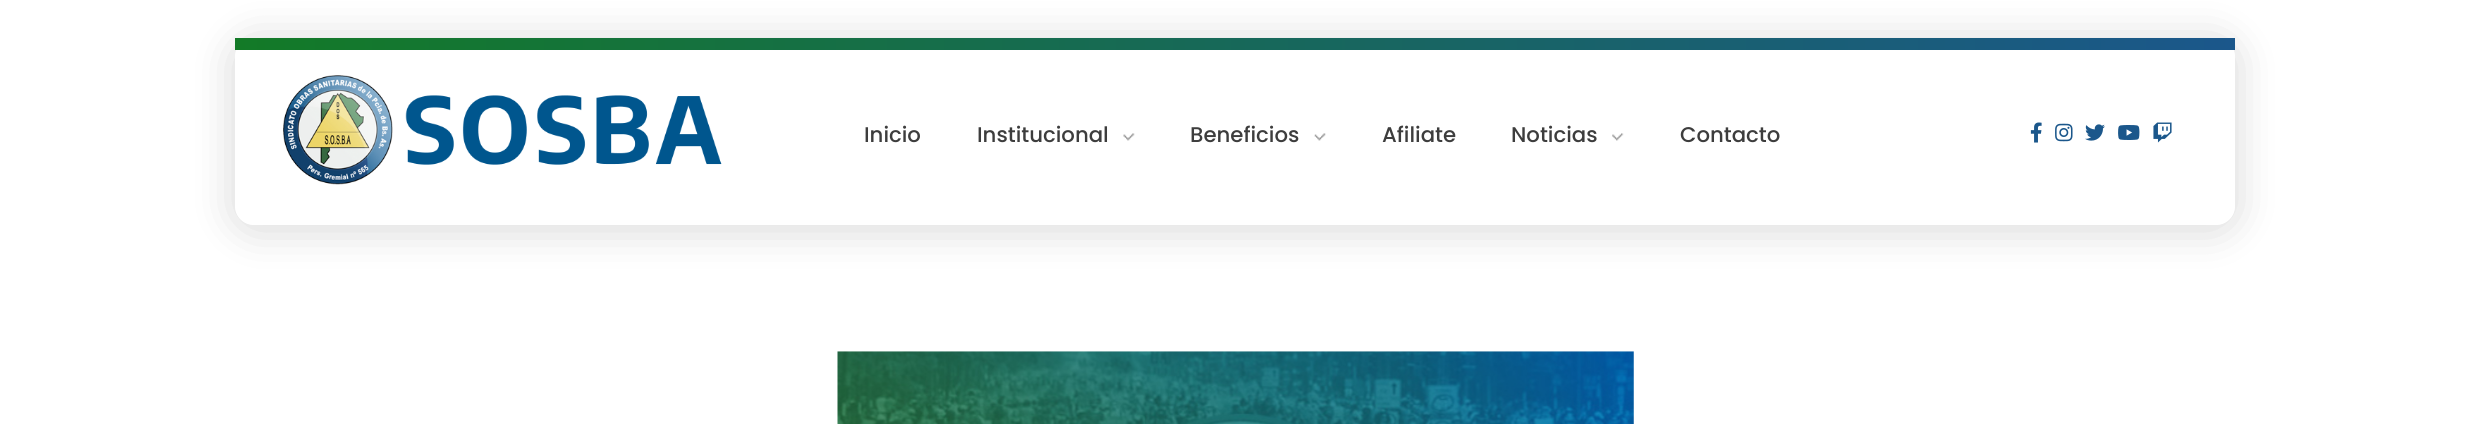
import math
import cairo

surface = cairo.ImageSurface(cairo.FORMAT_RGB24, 2469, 424)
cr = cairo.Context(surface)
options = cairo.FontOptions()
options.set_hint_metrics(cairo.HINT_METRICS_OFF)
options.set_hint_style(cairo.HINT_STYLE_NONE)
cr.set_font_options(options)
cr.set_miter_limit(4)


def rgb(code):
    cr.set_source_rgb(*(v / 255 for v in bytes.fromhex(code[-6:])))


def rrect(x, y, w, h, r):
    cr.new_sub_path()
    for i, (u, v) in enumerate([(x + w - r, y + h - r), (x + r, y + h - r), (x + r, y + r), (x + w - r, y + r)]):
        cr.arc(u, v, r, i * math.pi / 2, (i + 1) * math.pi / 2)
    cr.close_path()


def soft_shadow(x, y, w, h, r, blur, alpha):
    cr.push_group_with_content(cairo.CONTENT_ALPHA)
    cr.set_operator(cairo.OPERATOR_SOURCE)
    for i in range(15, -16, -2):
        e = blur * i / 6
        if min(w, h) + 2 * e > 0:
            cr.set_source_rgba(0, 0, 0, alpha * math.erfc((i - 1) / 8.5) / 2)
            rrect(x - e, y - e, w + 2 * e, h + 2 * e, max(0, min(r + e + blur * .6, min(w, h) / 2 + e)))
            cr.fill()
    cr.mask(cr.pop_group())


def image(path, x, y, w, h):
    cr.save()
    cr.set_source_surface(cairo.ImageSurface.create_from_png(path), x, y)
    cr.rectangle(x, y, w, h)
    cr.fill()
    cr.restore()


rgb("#ffffff")
cr.paint()
cr.save()
cr.set_fill_rule(cairo.FILL_RULE_EVEN_ODD)
cr.new_path()
cr.move_to(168, 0)
cr.line_to(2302, 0)
cr.line_to(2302, 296)
cr.line_to(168, 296)
cr.close_path()
cr.move_to(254, 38)
cr.line_to(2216, 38)
cr.curve_to(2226.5, 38, 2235, 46.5, 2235, 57)
cr.line_to(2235, 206)
cr.curve_to(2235, 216.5, 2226.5, 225, 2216, 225)
cr.line_to(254, 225)
cr.curve_to(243.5, 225, 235, 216.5, 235, 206)
cr.line_to(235, 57)
cr.curve_to(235, 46.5, 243.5, 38, 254, 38)
cr.close_path()
cr.clip()
rgb("#000000")
soft_shadow(235, 41, 2000, 188, 19, 22, 0.16)
cr.restore()
gradient = cairo.LinearGradient(235, 44, 2235, 44)
gradient.add_color_stop_rgba(0, 0.075, 0.478, 0.153, 1)
gradient.add_color_stop_rgba(1, 0.106, 0.341, 0.545, 1)
cr.set_source(gradient)
cr.rectangle(235, 38, 2000, 12)
cr.fill()
image("img/1.png", 283, 75, 439, 110)
image("img/2.png", 1123, 133, 12, 8)
image("img/3.png", 1314, 133, 12, 8)
image("img/4.png", 1612, 133, 12, 8)
image("img/5.png", 2030, 122, 12, 21)
image("img/6.png", 2055, 123, 18, 19)
image("img/7.png", 2085, 124, 20, 17)
image("img/8.png", 2118, 125, 22, 15)
image("img/9.png", 2153, 122, 19, 21)
image("img/10.png", 837, 351, 797, 73)
cr.select_font_face("Poppins Medium")
cr.set_font_size(21.25)
rgb("#3d3d3d")
for x, y, s in [
    (864, 142, "Inicio"),
    (977, 142, "Institucional"),
    (1190, 142, "Beneficios"),
    (1382, 142, "Afiliate"),
    (1511, 142, "Noticias"),
    (1680, 142, "Contacto"),
]:
    cr.move_to(x, y)
    cr.show_text(s)
surface.write_to_png("page.png")
